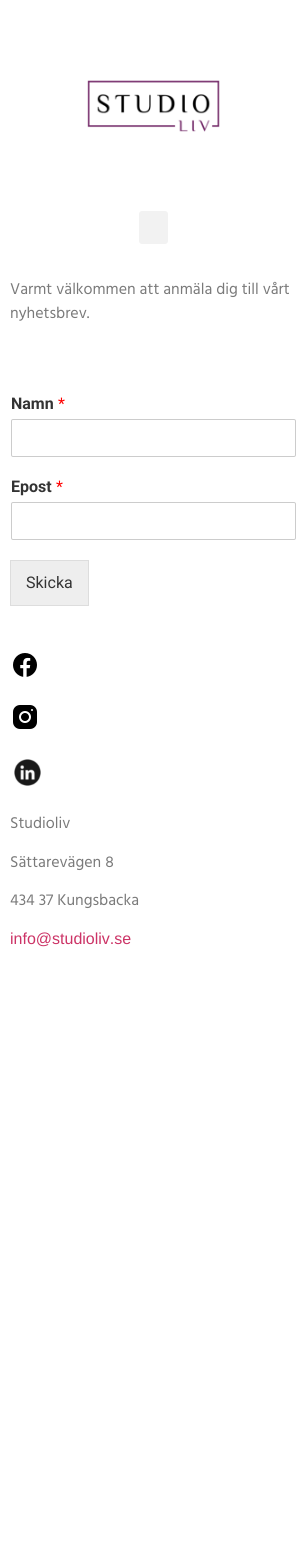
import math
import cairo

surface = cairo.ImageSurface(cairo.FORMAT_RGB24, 307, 1551)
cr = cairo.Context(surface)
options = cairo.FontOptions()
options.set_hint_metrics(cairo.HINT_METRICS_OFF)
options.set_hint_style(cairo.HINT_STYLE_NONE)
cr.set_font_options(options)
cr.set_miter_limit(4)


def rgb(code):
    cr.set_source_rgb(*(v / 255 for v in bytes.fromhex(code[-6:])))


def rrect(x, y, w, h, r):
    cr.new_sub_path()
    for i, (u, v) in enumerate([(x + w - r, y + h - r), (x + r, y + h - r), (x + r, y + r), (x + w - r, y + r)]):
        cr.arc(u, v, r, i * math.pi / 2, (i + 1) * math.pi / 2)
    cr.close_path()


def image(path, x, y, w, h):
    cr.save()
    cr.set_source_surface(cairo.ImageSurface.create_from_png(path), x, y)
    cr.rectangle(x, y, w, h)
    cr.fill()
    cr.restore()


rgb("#ffffff")
cr.paint()
image("img/1.png", 87, 80, 133, 52)
rgb("#f2f2f2")
rrect(139, 211, 29, 33, 3)
cr.fill()
rrect(11.5, 419.5, 284, 37, 1.5)
rgb("#cccccc")
cr.set_line_width(1)
cr.stroke()
rrect(11.5, 502.5, 284, 37, 1.5)
cr.stroke()
rgb("#eeeeee")
cr.rectangle(10.5, 560.5, 78, 45)
cr.fill_preserve()
rgb("#dddddd")
cr.stroke()
image("img/2.png", 13, 653, 24, 24)
image("img/3.png", 13, 705, 24, 24)
image("img/4.png", 14, 759, 27, 27)
cr.select_font_face("Hind")
cr.set_font_size(16)
rgb("#7a7a7a")
cr.move_to(10, 294)
cr.show_text("Varmt välkommen att anmäla dig till vårt")
cr.move_to(10, 318)
cr.show_text("nyhetsbrev.")
cr.select_font_face("Roboto", cairo.FONT_SLANT_NORMAL, cairo.FONT_WEIGHT_BOLD)
rgb("#333333")
cr.move_to(11, 409)
cr.show_text("Namn")
cr.select_font_face("Roboto")
rgb("#ff0000")
cr.move_to(58, 409)
cr.show_text("*")
cr.select_font_face("Roboto", cairo.FONT_SLANT_NORMAL, cairo.FONT_WEIGHT_BOLD)
rgb("#333333")
cr.move_to(11, 492)
cr.show_text("Epost")
cr.select_font_face("Roboto")
rgb("#ff0000")
cr.move_to(56, 492)
cr.show_text("*")
rgb("#333333")
cr.move_to(26, 588)
cr.show_text("Skicka")
cr.select_font_face("Hind")
rgb("#7a7a7a")
for x, y, s in [
    (10, 828, "Studioliv"),
    (10, 867, "Sättarevägen 8"),
    (10, 905, "434 37 Kungsbacka"),
]:
    cr.move_to(x, y)
    cr.show_text(s)
cr.select_font_face("Liberation Sans")
rgb("#cc3366")
cr.move_to(10, 944)
cr.show_text("info@studioliv.se")
surface.write_to_png("page.png")
